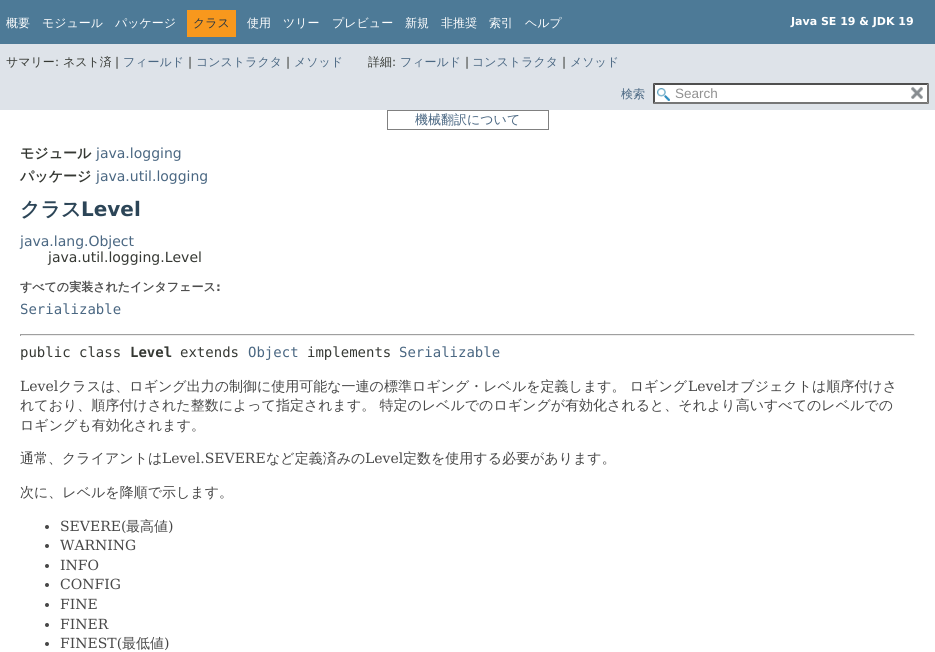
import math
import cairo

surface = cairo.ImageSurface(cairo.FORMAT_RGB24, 935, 652)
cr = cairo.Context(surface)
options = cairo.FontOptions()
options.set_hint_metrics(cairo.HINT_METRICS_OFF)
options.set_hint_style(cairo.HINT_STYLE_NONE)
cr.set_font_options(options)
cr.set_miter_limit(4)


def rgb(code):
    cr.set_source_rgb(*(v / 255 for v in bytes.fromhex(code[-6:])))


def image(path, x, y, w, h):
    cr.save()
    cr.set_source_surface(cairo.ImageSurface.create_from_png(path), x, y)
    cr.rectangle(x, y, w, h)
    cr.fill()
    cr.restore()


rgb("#ffffff")
cr.paint()
for x, y, w, h, color in [
    (0, 0, 935, 44, "#4d7a97"),
    (187, 10, 49, 27, "#f8981d"),
    (0, 44, 935, 66, "#dee3e9"),
    (653, 83, 276, 21, "#ffffff"),
]:
    rgb(color)
    cr.rectangle(x, y, w, h)
    cr.fill()
image("img/1.png", 657, 88, 13, 13)
rgb("#4f4f4f")
cr.new_path()
cr.move_to(653, 83)
cr.line_to(929, 83)
cr.line_to(927, 85)
cr.line_to(655, 85)
cr.close_path()
cr.fill()
rgb("#767676")
cr.new_path()
cr.move_to(929, 83)
cr.line_to(929, 104)
cr.line_to(927, 102)
cr.line_to(927, 85)
cr.close_path()
cr.fill()
cr.new_path()
cr.move_to(929, 104)
cr.line_to(653, 104)
cr.line_to(655, 102)
cr.line_to(927, 102)
cr.close_path()
cr.fill()
rgb("#4f4f4f")
cr.new_path()
cr.move_to(653, 104)
cr.line_to(653, 83)
cr.line_to(655, 85)
cr.line_to(655, 102)
cr.close_path()
cr.fill()
image("img/2.png", 911, 86, 12, 13)
cr.rectangle(387.5, 110.5, 161, 19)
rgb("#808080")
cr.set_line_width(1)
cr.stroke()
for x, y, w, h, color in [
    (20, 334, 895, 1, "#9f9f9f"),
    (914, 334, 1, 2, "#eeeeee"),
    (20, 335, 895, 1, "#eeeeee"),
    (20, 334, 1, 2, "#9f9f9f"),
]:
    rgb(color)
    cr.rectangle(x, y, w, h)
    cr.fill()
rgb("#474747")
cr.arc(47, 527, 2, 0, 2 * math.pi)
cr.fill()
cr.arc(47, 546, 2, 0, 2 * math.pi)
cr.fill()
cr.arc(47, 566, 2, 0, 2 * math.pi)
cr.fill()
cr.arc(47, 585, 2, 0, 2 * math.pi)
cr.fill()
cr.arc(47, 605, 2, 0, 2 * math.pi)
cr.fill()
cr.arc(47, 625, 2, 0, 2 * math.pi)
cr.fill()
cr.arc(47, 644, 2, 0, 2 * math.pi)
cr.fill()
cr.select_font_face("WenQuanYi Zen Hei Medium")
cr.set_font_size(12)
rgb("#ffffff")
for x, y, s in [
    (6, 27, "概要"),
    (42, 27, "モジュール"),
    (115, 27, "パッケージ"),
]:
    cr.move_to(x, y)
    cr.show_text(s)
rgb("#253441")
cr.move_to(193, 27)
cr.show_text("クラス")
rgb("#ffffff")
for x, y, s in [
    (247, 27, "使用"),
    (283, 27, "ツリー"),
    (332, 27, "プレビュー"),
    (405, 27, "新規"),
    (441, 27, "非推奨"),
    (489, 27, "索引"),
    (525, 27, "ヘルプ"),
]:
    cr.move_to(x, y)
    cr.show_text(s)
cr.select_font_face("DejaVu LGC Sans", cairo.FONT_SLANT_NORMAL, cairo.FONT_WEIGHT_BOLD)
cr.set_font_size(11)
cr.move_to(791, 25)
cr.show_text("Java SE 19 & JDK 19")
cr.select_font_face("WenQuanYi Zen Hei Medium")
cr.set_font_size(12)
rgb("#353833")
cr.move_to(6, 66)
cr.show_text("サマリー")
cr.select_font_face("DejaVu LGC Sans")
cr.move_to(55, 66)
cr.show_text(":")
cr.select_font_face("WenQuanYi Zen Hei Medium")
cr.move_to(63, 66)
cr.show_text("ネスト済")
cr.select_font_face("DejaVu LGC Sans")
cr.move_to(115, 66)
cr.show_text("|")
cr.select_font_face("WenQuanYi Zen Hei Medium")
rgb("#4a6782")
cr.move_to(123, 66)
cr.show_text("フィールド")
cr.select_font_face("DejaVu LGC Sans")
rgb("#353833")
cr.move_to(188, 66)
cr.show_text("|")
cr.select_font_face("WenQuanYi Zen Hei Medium")
rgb("#4a6782")
cr.move_to(196, 66)
cr.show_text("コンストラクタ")
cr.select_font_face("DejaVu LGC Sans")
rgb("#353833")
cr.move_to(286, 66)
cr.show_text("|")
cr.select_font_face("WenQuanYi Zen Hei Medium")
rgb("#4a6782")
cr.move_to(294, 66)
cr.show_text("メソッド")
rgb("#353833")
cr.move_to(368, 66)
cr.show_text("詳細")
cr.select_font_face("DejaVu LGC Sans")
cr.move_to(392, 66)
cr.show_text(":")
cr.select_font_face("WenQuanYi Zen Hei Medium")
rgb("#4a6782")
cr.move_to(400, 66)
cr.show_text("フィールド")
cr.select_font_face("DejaVu LGC Sans")
rgb("#353833")
cr.move_to(465, 66)
cr.show_text("|")
cr.select_font_face("WenQuanYi Zen Hei Medium")
rgb("#4a6782")
cr.move_to(472, 66)
cr.show_text("コンストラクタ")
cr.select_font_face("DejaVu LGC Sans")
rgb("#353833")
cr.move_to(562, 66)
cr.show_text("|")
cr.select_font_face("WenQuanYi Zen Hei Medium")
rgb("#4a6782")
cr.move_to(570, 66)
cr.show_text("メソッド")
cr.move_to(621, 98)
cr.show_text("検索")
cr.select_font_face("Liberation Sans")
cr.set_font_size(13.5)
rgb("#909090")
cr.move_to(675, 98)
cr.show_text("Search")
cr.select_font_face("WenQuanYi Zen Hei Medium")
cr.set_font_size(13)
rgb("#4a6782")
cr.move_to(415, 124)
cr.show_text("機械翻訳について")
cr.select_font_face("WenQuanYi Zen Hei", cairo.FONT_SLANT_NORMAL, cairo.FONT_WEIGHT_BOLD)
cr.set_font_size(14)
rgb("#353833")
cr.move_to(20, 158)
cr.show_text("モジュール")
cr.select_font_face("DejaVu LGC Sans")
rgb("#4a6782")
cr.move_to(96, 158)
cr.show_text("java.logging")
cr.select_font_face("WenQuanYi Zen Hei", cairo.FONT_SLANT_NORMAL, cairo.FONT_WEIGHT_BOLD)
rgb("#353833")
cr.move_to(20, 181)
cr.show_text("パッケージ")
cr.select_font_face("DejaVu LGC Sans")
rgb("#4a6782")
cr.move_to(96, 181)
cr.show_text("java.util.logging")
cr.select_font_face("WenQuanYi Zen Hei", cairo.FONT_SLANT_NORMAL, cairo.FONT_WEIGHT_BOLD)
cr.set_font_size(20)
rgb("#2c4557")
cr.move_to(20, 216)
cr.show_text("クラス")
cr.select_font_face("DejaVu LGC Sans", cairo.FONT_SLANT_NORMAL, cairo.FONT_WEIGHT_BOLD)
cr.move_to(81, 216)
cr.show_text("Level")
cr.select_font_face("DejaVu LGC Sans")
cr.set_font_size(14)
rgb("#4a6782")
cr.move_to(20, 246)
cr.show_text("java.lang.Object")
rgb("#353833")
cr.move_to(48, 262)
cr.show_text("java.util.logging.Level")
cr.select_font_face("WenQuanYi Zen Hei", cairo.FONT_SLANT_NORMAL, cairo.FONT_WEIGHT_BOLD)
cr.set_font_size(12)
rgb("#4e4e4e")
cr.move_to(20, 291)
cr.show_text("すべての実装されたインタフェース")
cr.select_font_face("DejaVu LGC Sans", cairo.FONT_SLANT_NORMAL, cairo.FONT_WEIGHT_BOLD)
cr.move_to(216, 291)
cr.show_text(":")
cr.select_font_face("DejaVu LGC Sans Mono")
cr.set_font_size(14)
rgb("#4a6782")
cr.move_to(20, 314)
cr.show_text("Serializable")
rgb("#353833")
cr.move_to(20, 357)
cr.show_text("public class")
cr.select_font_face("DejaVu LGC Sans Mono", cairo.FONT_SLANT_NORMAL, cairo.FONT_WEIGHT_BOLD)
cr.move_to(130, 357)
cr.show_text("Level")
cr.select_font_face("DejaVu LGC Sans Mono")
cr.move_to(180, 357)
cr.show_text("extends")
rgb("#4a6782")
cr.move_to(248, 357)
cr.show_text("Object")
rgb("#353833")
cr.move_to(307, 357)
cr.show_text("implements")
rgb("#4a6782")
cr.move_to(399, 357)
cr.show_text("Serializable")
cr.select_font_face("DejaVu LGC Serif")
rgb("#474747")
cr.move_to(20, 391)
cr.show_text("Level")
cr.select_font_face("WenQuanYi Zen Hei Medium")
cr.move_to(58, 391)
cr.show_text("クラスは、ロギング出力の制御に使用可能な一連の標準ロギング・レベルを定義します。 ロギング")
cr.select_font_face("DejaVu LGC Serif")
cr.move_to(688, 391)
cr.show_text("Level")
cr.select_font_face("WenQuanYi Zen Hei Medium")
for x, y, s in [
    (726, 391, "オブジェクトは順序付けさ"),
    (20, 410, "れており、順序付けされた整数によって指定されます。 特定のレベルでのロギングが有効化されると、それより高いすべてのレベルでの"),
    (20, 430, "ロギングも有効化されます。"),
    (20, 463, "通常、クライアントは"),
]:
    cr.move_to(x, y)
    cr.show_text(s)
cr.select_font_face("DejaVu LGC Serif")
cr.move_to(162, 463)
cr.show_text("Level.SEVERE")
cr.select_font_face("WenQuanYi Zen Hei Medium")
cr.move_to(266, 463)
cr.show_text("など定義済みの")
cr.select_font_face("DejaVu LGC Serif")
cr.move_to(365, 463)
cr.show_text("Level")
cr.select_font_face("WenQuanYi Zen Hei Medium")
cr.move_to(403, 463)
cr.show_text("定数を使用する必要があります。")
cr.move_to(20, 497)
cr.show_text("次に、レベルを降順で示します。")
cr.select_font_face("DejaVu LGC Serif")
cr.move_to(60, 531)
cr.show_text("SEVERE(")
cr.select_font_face("WenQuanYi Zen Hei Medium")
cr.move_to(126, 531)
cr.show_text("最高値")
cr.select_font_face("DejaVu LGC Serif")
for x, y, s in [
    (168, 531, ")"),
    (60, 550, "WARNING"),
    (60, 570, "INFO"),
    (60, 589, "CONFIG"),
    (60, 609, "FINE"),
    (60, 629, "FINER"),
    (60, 648, "FINEST("),
]:
    cr.move_to(x, y)
    cr.show_text(s)
cr.select_font_face("WenQuanYi Zen Hei Medium")
cr.move_to(122, 648)
cr.show_text("最低値")
cr.select_font_face("DejaVu LGC Serif")
cr.move_to(164, 648)
cr.show_text(")")
surface.write_to_png("page.png")
